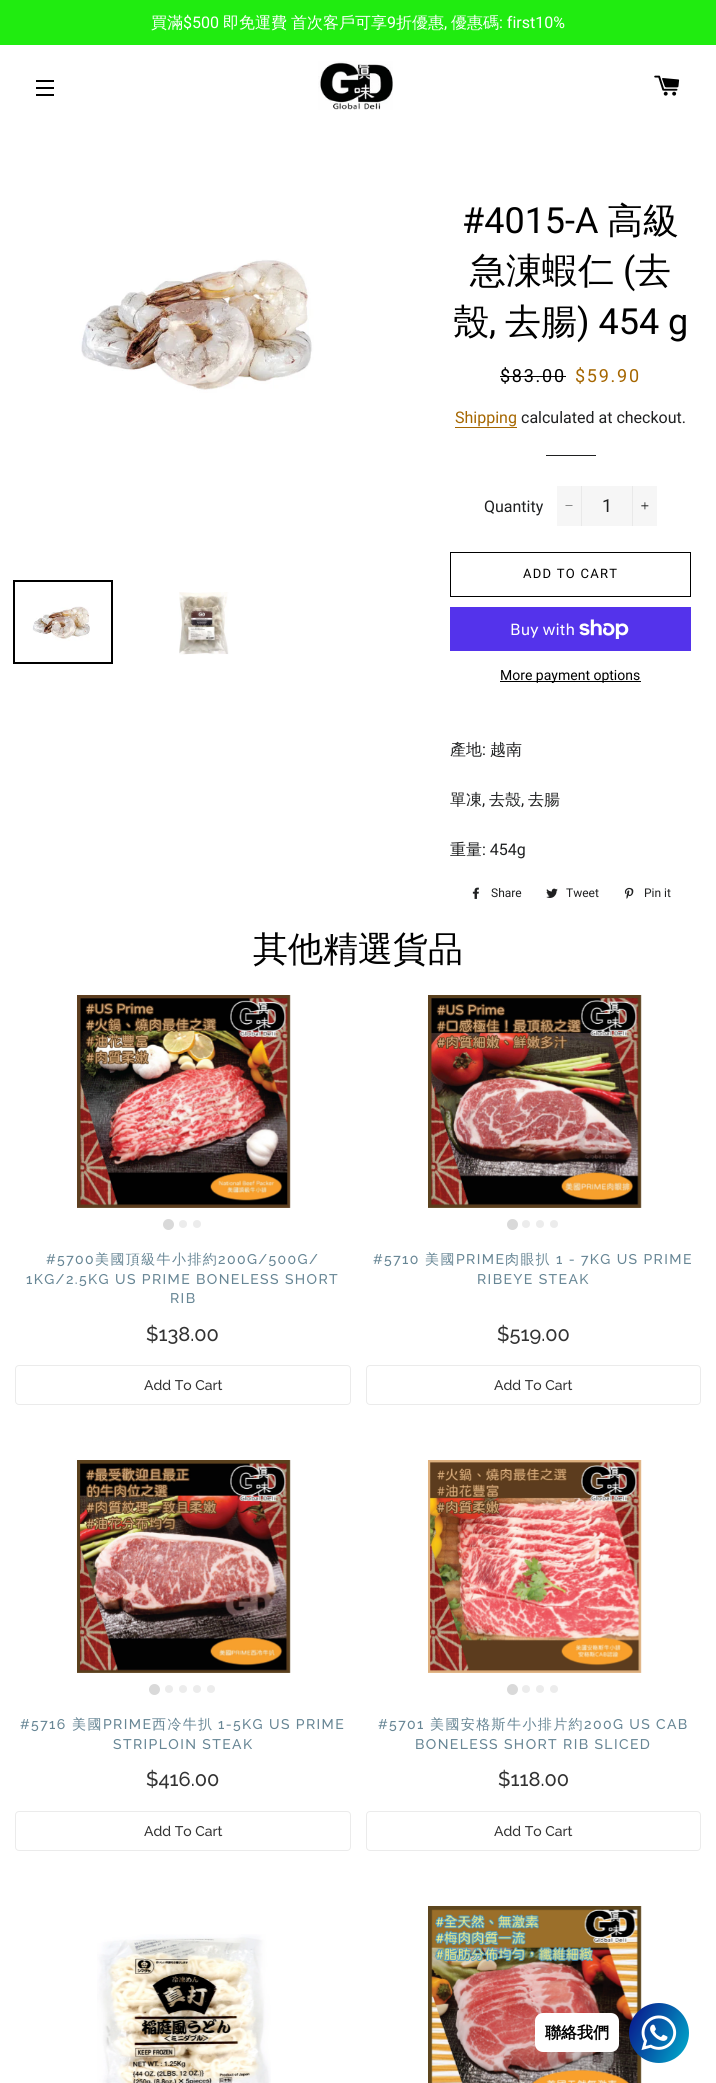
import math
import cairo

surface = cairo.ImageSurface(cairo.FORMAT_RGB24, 716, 2083)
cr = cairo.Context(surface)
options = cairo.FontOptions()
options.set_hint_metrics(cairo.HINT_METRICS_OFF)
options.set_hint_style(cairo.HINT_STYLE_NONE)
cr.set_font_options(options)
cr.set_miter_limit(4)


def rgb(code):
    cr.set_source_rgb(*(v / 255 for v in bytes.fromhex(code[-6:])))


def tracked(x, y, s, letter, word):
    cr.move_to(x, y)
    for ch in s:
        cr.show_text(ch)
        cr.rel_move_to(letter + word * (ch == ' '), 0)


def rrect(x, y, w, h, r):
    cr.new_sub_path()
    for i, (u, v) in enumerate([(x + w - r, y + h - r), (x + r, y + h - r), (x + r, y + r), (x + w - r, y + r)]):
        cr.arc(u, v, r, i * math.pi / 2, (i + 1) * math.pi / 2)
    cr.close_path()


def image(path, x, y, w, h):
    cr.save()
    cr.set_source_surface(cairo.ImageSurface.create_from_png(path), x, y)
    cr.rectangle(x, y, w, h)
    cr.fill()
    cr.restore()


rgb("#ffffff")
cr.paint()
for x, y, w, h, color in [
    (0, 0, 716, 45, "#20ec10"),
    (36, 80, 18, 2, "#000000"),
    (36, 87, 18, 2, "#000000"),
    (36, 94, 18, 2, "#000000"),
]:
    rgb(color)
    cr.rectangle(x, y, w, h)
    cr.fill()
image("img/1.png", 318, 61, 75, 49)
image("img/2.png", 654, 75, 26, 21)
image("img/3.png", 41, 160, 324, 324)
cr.rectangle(14, 581, 98, 82)
cr.stroke()
image("img/4.png", 32, 606, 58, 35)
image("img/5.png", 179, 592, 50, 63)
for x, y, w, h, color in [
    (500, 376, 66, 1, "#000000"),
    (455, 427, 62, 1, "#a56600"),
    (546, 455, 50, 1, "#1f2021"),
    (557, 486, 100, 40, "#f6f6f6"),
    (581, 486, 1, 40, "#e9e9e9"),
]:
    rgb(color)
    cr.rectangle(x, y, w, h)
    cr.fill()
rgb("#1c1d1d")
cr.new_path()
cr.move_to(565.5, 505.5)
cr.line_to(572.5, 505.5)
cr.line_to(572.5, 506)
cr.line_to(565.5, 506)
cr.close_path()
cr.fill()
rgb("#e9e9e9")
cr.rectangle(632, 486, 1, 40)
cr.fill()
image("img/6.png", 641, 502, 8, 8)
cr.rectangle(450.5, 552.5, 240, 44)
rgb("#000000")
cr.set_line_width(1)
cr.stroke()
rgb("#5433eb")
cr.rectangle(450, 607, 241, 44)
cr.fill()
image("img/7.png", 579, 619, 50, 20)
rgb("#000000")
cr.rectangle(500, 681, 141, 1)
cr.fill()
image("img/8.png", 472, 887, 7, 12)
image("img/9.png", 546, 888, 12, 10)
image("img/10.png", 624, 887, 10, 12)
image("img/11.png", 77, 995, 214, 213)
rgb("#d9d9d9")
cr.arc(168.5, 1224.5, 5.5, 0, 2 * math.pi)
cr.fill()
rgb("#ececec")
cr.arc(183, 1224, 4, 0, 2 * math.pi)
cr.fill()
cr.arc(197, 1224, 4, 0, 2 * math.pi)
cr.fill()
rrect(15.5, 1365.5, 335, 39, 3.5)
rgb("#ebebeb")
cr.stroke()
image("img/12.png", 428, 995, 214, 213)
rgb("#d9d9d9")
cr.arc(512.5, 1224.5, 5.5, 0, 2 * math.pi)
cr.fill()
rgb("#ececec")
cr.arc(526, 1224, 4, 0, 2 * math.pi)
cr.fill()
cr.arc(540, 1224, 4, 0, 2 * math.pi)
cr.fill()
cr.arc(554, 1224, 4, 0, 2 * math.pi)
cr.fill()
rrect(366.5, 1365.5, 334, 39, 3.5)
rgb("#ebebeb")
cr.stroke()
image("img/13.png", 77, 1460, 214, 213)
rgb("#d9d9d9")
cr.arc(154.5, 1689.5, 5.5, 0, 2 * math.pi)
cr.fill()
rgb("#ececec")
cr.arc(169, 1689, 4, 0, 2 * math.pi)
cr.fill()
cr.arc(183, 1689, 4, 0, 2 * math.pi)
cr.fill()
cr.arc(197, 1689, 4, 0, 2 * math.pi)
cr.fill()
cr.arc(211, 1689, 4, 0, 2 * math.pi)
cr.fill()
rrect(15.5, 1811.5, 335, 39, 3.5)
rgb("#ebebeb")
cr.stroke()
image("img/14.png", 428, 1460, 214, 213)
rgb("#d9d9d9")
cr.arc(512.5, 1689.5, 5.5, 0, 2 * math.pi)
cr.fill()
rgb("#ececec")
cr.arc(526, 1689, 4, 0, 2 * math.pi)
cr.fill()
cr.arc(540, 1689, 4, 0, 2 * math.pi)
cr.fill()
cr.arc(554, 1689, 4, 0, 2 * math.pi)
cr.fill()
rrect(366.5, 1811.5, 334, 39, 3.5)
rgb("#ebebeb")
cr.stroke()
image("img/15.png", 97, 1934, 174, 149)
image("img/16.png", 428, 1906, 214, 177)
gradient = cairo.LinearGradient(623, 2016, 695, 2050)
gradient.add_color_stop_rgba(0, 0.039, 0.055, 0.533, 1)
gradient.add_color_stop_rgba(1, 0, 0.694, 0.808, 1)
cr.set_source(gradient)
cr.arc(659, 2033, 30, 0, 2 * math.pi)
cr.fill()
rgb("#ffffff")
rrect(535, 2013, 84, 39, 8)
cr.fill()
image("img/17.png", 641, 2015, 36, 36)
cr.select_font_face("WenQuanYi Zen Hei Medium")
cr.set_font_size(16)
cr.move_to(151, 28)
cr.show_text("買滿")
cr.select_font_face("Roboto")
cr.move_to(183, 28)
cr.show_text("$500")
cr.select_font_face("WenQuanYi Zen Hei Medium")
cr.move_to(223, 28)
cr.show_text("即免運費")
cr.move_to(291, 28)
cr.show_text("首次客戶可享")
cr.select_font_face("Roboto")
cr.move_to(387, 28)
cr.show_text("9")
cr.select_font_face("WenQuanYi Zen Hei Medium")
cr.move_to(396, 28)
cr.show_text("折優惠")
cr.move_to(451, 28)
cr.show_text("優惠碼")
cr.select_font_face("Roboto")
cr.move_to(499, 28)
cr.show_text(": first10%")
cr.move_to(444, 28)
cr.show_text(",")
cr.set_font_size(36)
rgb("#000000")
cr.move_to(462, 233)
cr.show_text("#4015-A")
cr.select_font_face("WenQuanYi Zen Hei Medium")
cr.move_to(607, 233)
cr.show_text("高級")
cr.move_to(470, 283)
cr.show_text("急涷蝦仁")
cr.select_font_face("Roboto")
cr.move_to(623, 283)
cr.show_text("(")
cr.select_font_face("WenQuanYi Zen Hei Medium")
cr.move_to(635, 283)
cr.show_text("去")
cr.move_to(453, 334)
cr.show_text("殼")
cr.select_font_face("Roboto")
cr.move_to(489, 334)
cr.show_text(",")
cr.select_font_face("WenQuanYi Zen Hei Medium")
cr.move_to(505, 334)
cr.show_text("去腸")
cr.select_font_face("Roboto")
cr.move_to(577, 334)
cr.show_text(") 454 g")
cr.set_font_size(18)
tracked(500, 382, "$83.00", 1.75, 0)
rgb("#a56600")
tracked(575, 382, "$59.90", 1.75, 0)
cr.set_font_size(16)
cr.move_to(455, 423)
cr.show_text("Shipping")
rgb("#1f2021")
cr.move_to(521, 423)
cr.show_text("calculated at checkout.")
cr.move_to(484, 512)
cr.show_text("Quantity")
cr.set_font_size(18)
cr.move_to(602, 512)
cr.show_text("1")
cr.set_font_size(13)
rgb("#000000")
tracked(523, 578, "ADD TO CART", 1.25, 0)
cr.select_font_face("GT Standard")
cr.set_font_size(16)
rgb("#ffffff")
cr.move_to(510, 635)
cr.show_text("Buy with")
cr.select_font_face("Roboto")
cr.set_font_size(14)
rgb("#000000")
cr.move_to(500, 680)
cr.show_text("More payment options")
cr.select_font_face("WenQuanYi Zen Hei Medium")
cr.set_font_size(16)
rgb("#1f2021")
cr.move_to(450, 755)
cr.show_text("產地")
cr.select_font_face("Roboto")
cr.move_to(482, 755)
cr.show_text(":")
cr.select_font_face("WenQuanYi Zen Hei Medium")
cr.move_to(490, 755)
cr.show_text("越南")
cr.move_to(450, 805)
cr.show_text("單凍")
cr.select_font_face("Roboto")
cr.move_to(482, 805)
cr.show_text(",")
cr.select_font_face("WenQuanYi Zen Hei Medium")
cr.move_to(489, 805)
cr.show_text("去殼")
cr.select_font_face("Roboto")
cr.move_to(521, 805)
cr.show_text(",")
cr.select_font_face("WenQuanYi Zen Hei Medium")
cr.move_to(528, 805)
cr.show_text("去腸")
cr.move_to(450, 855)
cr.show_text("重量")
cr.select_font_face("Roboto")
cr.move_to(482, 855)
cr.show_text(": 454g")
cr.set_font_size(12)
for x, y, s in [
    (491, 897, "Share"),
    (566, 897, "Tweet"),
    (644, 897, "Pin it"),
]:
    cr.move_to(x, y)
    cr.show_text(s)
cr.select_font_face("WenQuanYi Zen Hei Medium")
cr.set_font_size(35)
rgb("#000000")
cr.move_to(253, 961)
cr.show_text("其他精選貨品")
cr.select_font_face("Raleway Medium")
cr.set_font_size(14)
rgb("#678695")
tracked(46, 1264, "#5700", 1.4, 0)
cr.select_font_face("WenQuanYi Zen Hei Medium")
tracked(95, 1264, "美國頂級牛小排約", 1.4, 0)
cr.select_font_face("Raleway Medium")
for x, y, s in [
    (218, 1264, "200G/500G/"),
    (26, 1284, "1KG/2.5KG US PRIME BONELESS SHORT"),
    (170, 1303, "RIB"),
]:
    tracked(x, y, s, 1.4, 0)
cr.set_font_size(20)
rgb("#333333")
cr.move_to(146, 1341)
cr.show_text("$138.00")
cr.set_font_size(14)
cr.move_to(144, 1390)
cr.show_text("Add To Cart")
rgb("#678695")
tracked(373, 1264, "#5710", 1.4, 0)
cr.select_font_face("WenQuanYi Zen Hei Medium")
tracked(425, 1264, "美國", 1.4, 0)
cr.select_font_face("Raleway Medium")
tracked(456, 1264, "PRIME", 1.4, 0)
cr.select_font_face("WenQuanYi Zen Hei Medium")
tracked(505, 1264, "肉眼扒", 1.4, 0)
cr.select_font_face("Raleway Medium")
tracked(556, 1264, "1 - 7KG US PRIME", 1.4, 0)
tracked(477, 1284, "RIBEYE STEAK", 1.4, 0)
cr.set_font_size(20)
rgb("#333333")
cr.move_to(497, 1341)
cr.show_text("$519.00")
cr.set_font_size(14)
cr.move_to(494, 1390)
cr.show_text("Add To Cart")
rgb("#678695")
tracked(20, 1729, "#5716", 1.4, 0)
cr.select_font_face("WenQuanYi Zen Hei Medium")
tracked(72, 1729, "美國", 1.4, 0)
cr.select_font_face("Raleway Medium")
tracked(103, 1729, "PRIME", 1.4, 0)
cr.select_font_face("WenQuanYi Zen Hei Medium")
tracked(152, 1729, "西冷牛扒", 1.4, 0)
cr.select_font_face("Raleway Medium")
tracked(218, 1729, "1-5KG US PRIME", 1.4, 0)
tracked(113, 1749, "STRIPLOIN STEAK", 1.4, 0)
cr.set_font_size(20)
rgb("#333333")
cr.move_to(146, 1786)
cr.show_text("$416.00")
cr.set_font_size(14)
cr.move_to(144, 1836)
cr.show_text("Add To Cart")
rgb("#678695")
tracked(378, 1729, "#5701", 1.4, 0)
cr.select_font_face("WenQuanYi Zen Hei Medium")
tracked(430, 1729, "美國安格斯牛小排片約", 1.4, 0)
cr.select_font_face("Raleway Medium")
tracked(584, 1729, "200G US CAB", 1.4, 0)
tracked(415, 1749, "BONELESS SHORT RIB SLICED", 1.4, 0)
cr.set_font_size(20)
rgb("#333333")
cr.move_to(498, 1786)
cr.show_text("$118.00")
cr.set_font_size(14)
cr.move_to(494, 1836)
cr.show_text("Add To Cart")
cr.select_font_face("WenQuanYi Zen Hei", cairo.FONT_SLANT_NORMAL, cairo.FONT_WEIGHT_BOLD)
cr.set_font_size(16)
rgb("#000000")
cr.move_to(545, 2038)
cr.show_text("聯絡我們")
surface.write_to_png("page.png")
